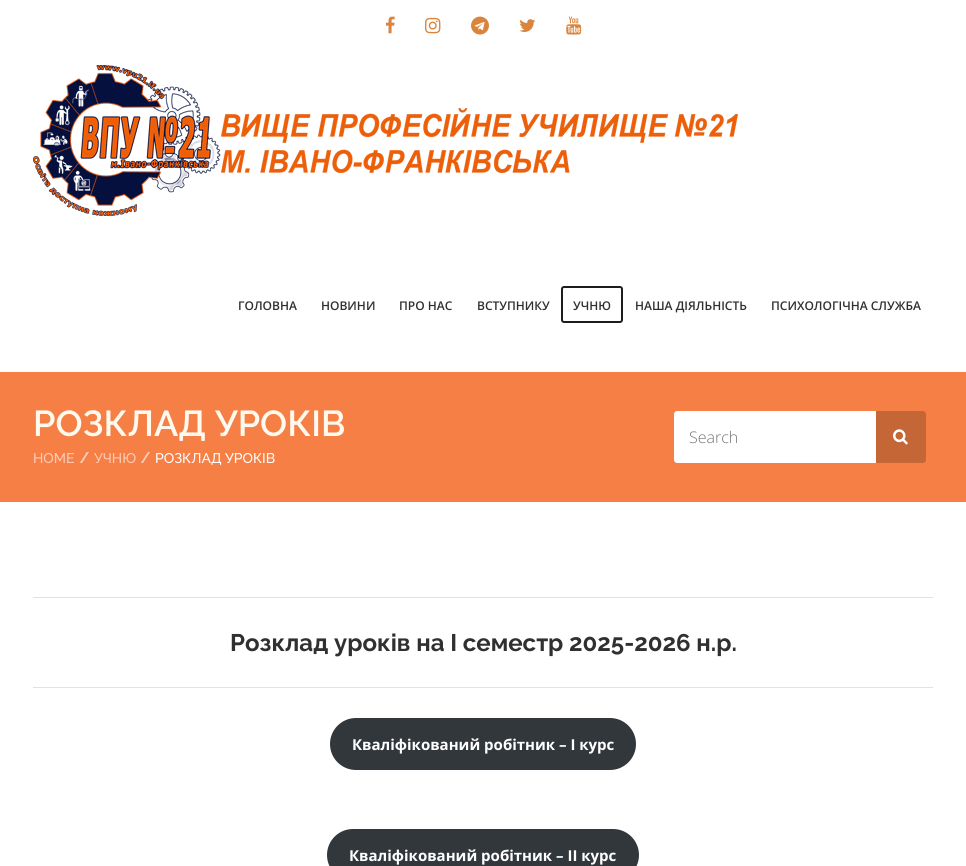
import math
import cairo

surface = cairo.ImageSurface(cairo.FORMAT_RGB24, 966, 866)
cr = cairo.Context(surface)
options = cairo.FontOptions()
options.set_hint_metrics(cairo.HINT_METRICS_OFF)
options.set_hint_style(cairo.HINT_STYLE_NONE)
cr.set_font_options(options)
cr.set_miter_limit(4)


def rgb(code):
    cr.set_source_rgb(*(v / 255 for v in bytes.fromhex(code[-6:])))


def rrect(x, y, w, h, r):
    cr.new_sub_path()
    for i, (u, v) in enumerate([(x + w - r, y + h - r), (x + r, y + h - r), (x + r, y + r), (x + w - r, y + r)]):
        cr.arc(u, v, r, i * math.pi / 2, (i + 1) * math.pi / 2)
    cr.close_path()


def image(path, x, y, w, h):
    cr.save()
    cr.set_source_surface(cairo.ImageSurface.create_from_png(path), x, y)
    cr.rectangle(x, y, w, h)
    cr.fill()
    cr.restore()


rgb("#ffffff")
cr.paint()
image("img/1.png", 385, 16, 10, 18)
image("img/2.png", 425, 17, 16, 17)
image("img/3.png", 471, 16, 18, 19)
image("img/4.png", 519, 19, 17, 13)
image("img/5.png", 566, 16, 16, 19)
image("img/6.png", 33, 65, 705, 151)
rrect(562, 287, 60, 35, 2)
rgb("#201c1d")
cr.stroke()
rgb("#f67f45")
cr.rectangle(0, 372, 966, 130)
cr.fill()
image("img/7.png", 79, 452, 10, 11)
image("img/7.png", 140, 452, 10, 11)
rgb("#ffffff")
cr.new_path()
cr.move_to(677, 411)
cr.line_to(876, 411)
cr.line_to(876, 463)
cr.line_to(677, 463)
cr.curve_to(675.5, 463, 674, 461.5, 674, 460)
cr.line_to(674, 414)
cr.curve_to(674, 412.5, 675.5, 411, 677, 411)
cr.close_path()
cr.fill()
rgb("#c56637")
cr.new_path()
cr.move_to(876, 411)
cr.line_to(923, 411)
cr.curve_to(924.5, 411, 926, 412.5, 926, 414)
cr.line_to(926, 460)
cr.curve_to(926, 461.5, 924.5, 463, 923, 463)
cr.line_to(876, 463)
cr.close_path()
cr.fill()
image("img/8.png", 893, 429, 15, 16)
rgb("#e6e2d6")
cr.rectangle(33, 597, 900, 1)
cr.fill()
cr.rectangle(33, 687, 900, 1)
cr.fill()
rgb("#32373c")
rrect(330, 718, 306, 52, 26)
cr.fill()
rrect(327, 829, 312, 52, 26)
cr.fill()
cr.select_font_face("Open Sans SemiBold")
cr.set_font_size(12)
rgb("#303030")
for x, y, s in [
    (238, 310, "ГОЛОВНА"),
    (321, 310, "НОВИНИ"),
    (399, 310, "ПРО НАС"),
    (477, 310, "ВСТУПНИКУ"),
    (573, 310, "УЧНЮ"),
    (635, 310, "НАША ДІЯЛЬНІСТЬ"),
    (771, 310, "ПСИХОЛОГІЧНА СЛУЖБА"),
]:
    cr.move_to(x, y)
    cr.show_text(s)
cr.select_font_face("Raleway SemiBold")
cr.set_font_size(36)
rgb("#fffaf0")
cr.move_to(33, 436)
cr.show_text("РОЗКЛАД УРОКІВ")
cr.select_font_face("Raleway Medium")
cr.set_font_size(14)
rgb("#fbccb5")
cr.move_to(33, 463)
cr.show_text("HOME")
cr.move_to(94, 463)
cr.show_text("УЧНЮ")
rgb("#ffffff")
cr.move_to(155, 463)
cr.show_text("РОЗКЛАД УРОКІВ")
cr.select_font_face("Open Sans Light")
cr.set_font_size(16)
rgb("#757575")
cr.move_to(689, 443)
cr.show_text("Search")
cr.select_font_face("Raleway", cairo.FONT_SLANT_NORMAL, cairo.FONT_WEIGHT_BOLD)
cr.set_font_size(24)
rgb("#303030")
cr.move_to(230, 651)
cr.show_text("Розклад уроків на І семестр 2025-2026 н.р.")
cr.select_font_face("Open Sans", cairo.FONT_SLANT_NORMAL, cairo.FONT_WEIGHT_BOLD)
cr.set_font_size(15)
rgb("#ffffff")
cr.move_to(352, 750)
cr.show_text("Кваліфікований робітник – І курс")
cr.move_to(349, 861)
cr.show_text("Кваліфікований робітник – ІІ курс")
surface.write_to_png("page.png")
